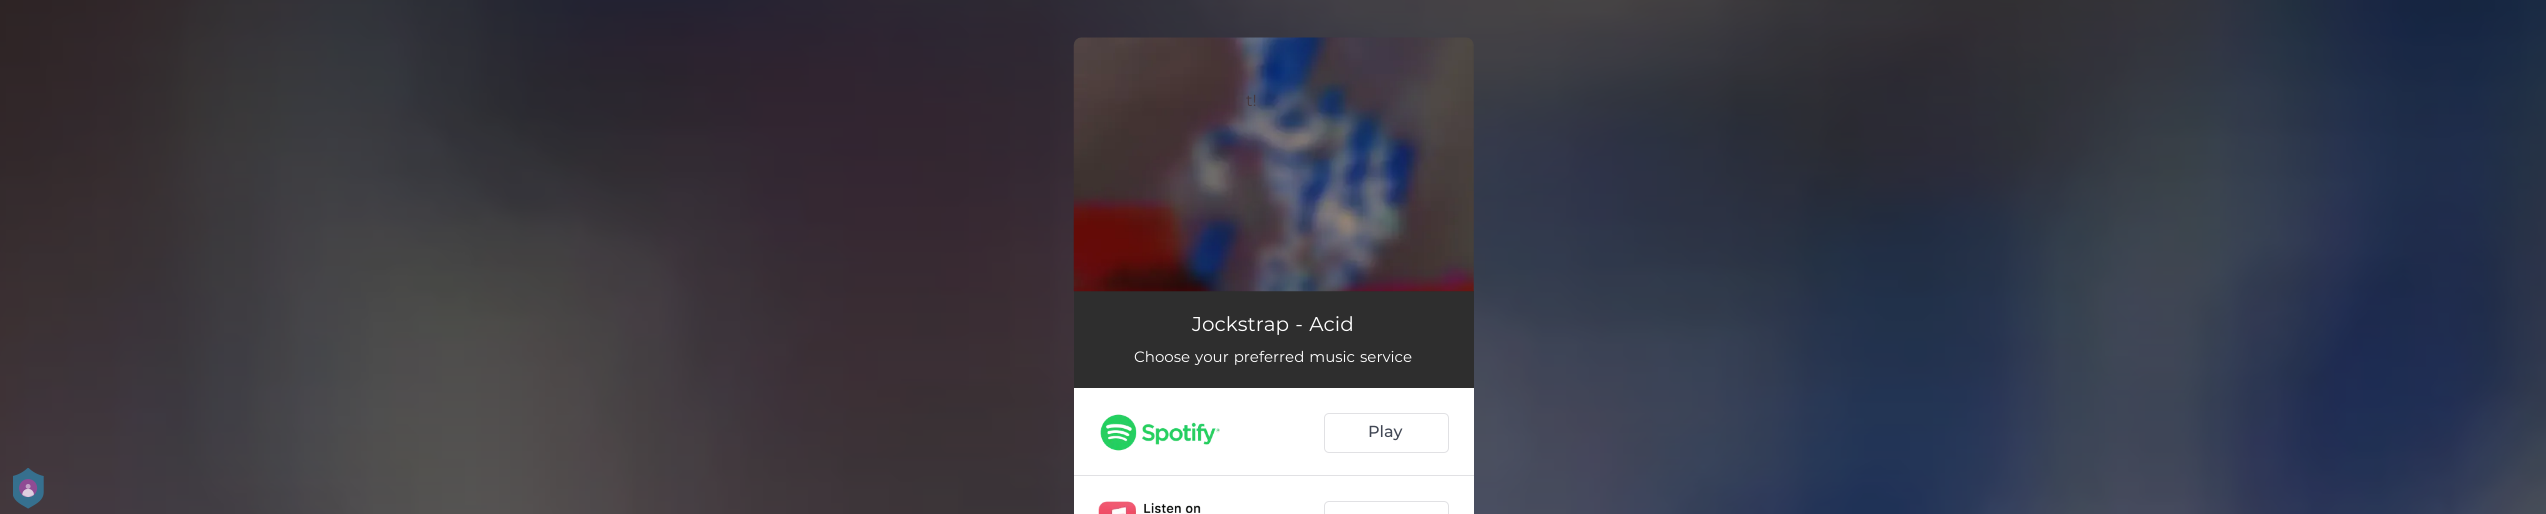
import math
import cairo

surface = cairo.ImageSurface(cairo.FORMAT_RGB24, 2546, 514)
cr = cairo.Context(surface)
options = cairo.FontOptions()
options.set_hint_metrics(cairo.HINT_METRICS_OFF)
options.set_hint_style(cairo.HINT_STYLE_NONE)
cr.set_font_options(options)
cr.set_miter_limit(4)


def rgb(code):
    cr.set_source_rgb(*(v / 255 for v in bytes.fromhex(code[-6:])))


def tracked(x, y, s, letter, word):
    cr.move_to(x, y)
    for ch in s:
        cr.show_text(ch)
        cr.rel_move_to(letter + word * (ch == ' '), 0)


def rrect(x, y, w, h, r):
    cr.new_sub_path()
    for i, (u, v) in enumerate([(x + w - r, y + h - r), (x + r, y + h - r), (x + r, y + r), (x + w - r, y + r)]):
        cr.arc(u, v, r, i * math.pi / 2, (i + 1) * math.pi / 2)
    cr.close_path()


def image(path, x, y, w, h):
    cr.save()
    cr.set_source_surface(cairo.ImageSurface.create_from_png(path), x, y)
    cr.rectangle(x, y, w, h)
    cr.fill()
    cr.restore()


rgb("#ffffff")
cr.paint()
image("img/1.png", 0, 0, 2546, 514)
rgb("#2e2e2e")
cr.rectangle(1074, 291, 400, 97)
cr.fill()
image("img/2.png", 1073, 37, 401, 255)
rgb("#ffffff")
cr.rectangle(1074, 388, 400, 126)
cr.fill()
rgb("#e1e1e4")
cr.rectangle(1074, 475, 400, 1)
cr.fill()
image("img/3.png", 1100, 414, 120, 37)
rrect(1324.5, 413.5, 124, 39, 4.5)
cr.set_line_width(1)
cr.stroke()
image("img/4.png", 1098, 501, 103, 13)
rrect(1324.5, 501.5, 124, 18, 4.5)
cr.stroke()
image("img/5.png", 13, 468, 31, 41)
cr.select_font_face("Montserrat")
cr.set_font_size(16)
rgb("#47383e")
tracked(1246, 106, "t!", 0, 1)
cr.set_font_size(20)
rgb("#ffffff")
tracked(1192, 331, "Jockstrap - Acid", 0, 1)
cr.set_font_size(15)
tracked(1134, 362, "Choose your preferred music service", 0, 1)
cr.select_font_face("Montserrat Medium")
cr.set_font_size(16)
rgb("#414754")
cr.move_to(1368, 437)
cr.show_text("Play")
surface.write_to_png("page.png")
